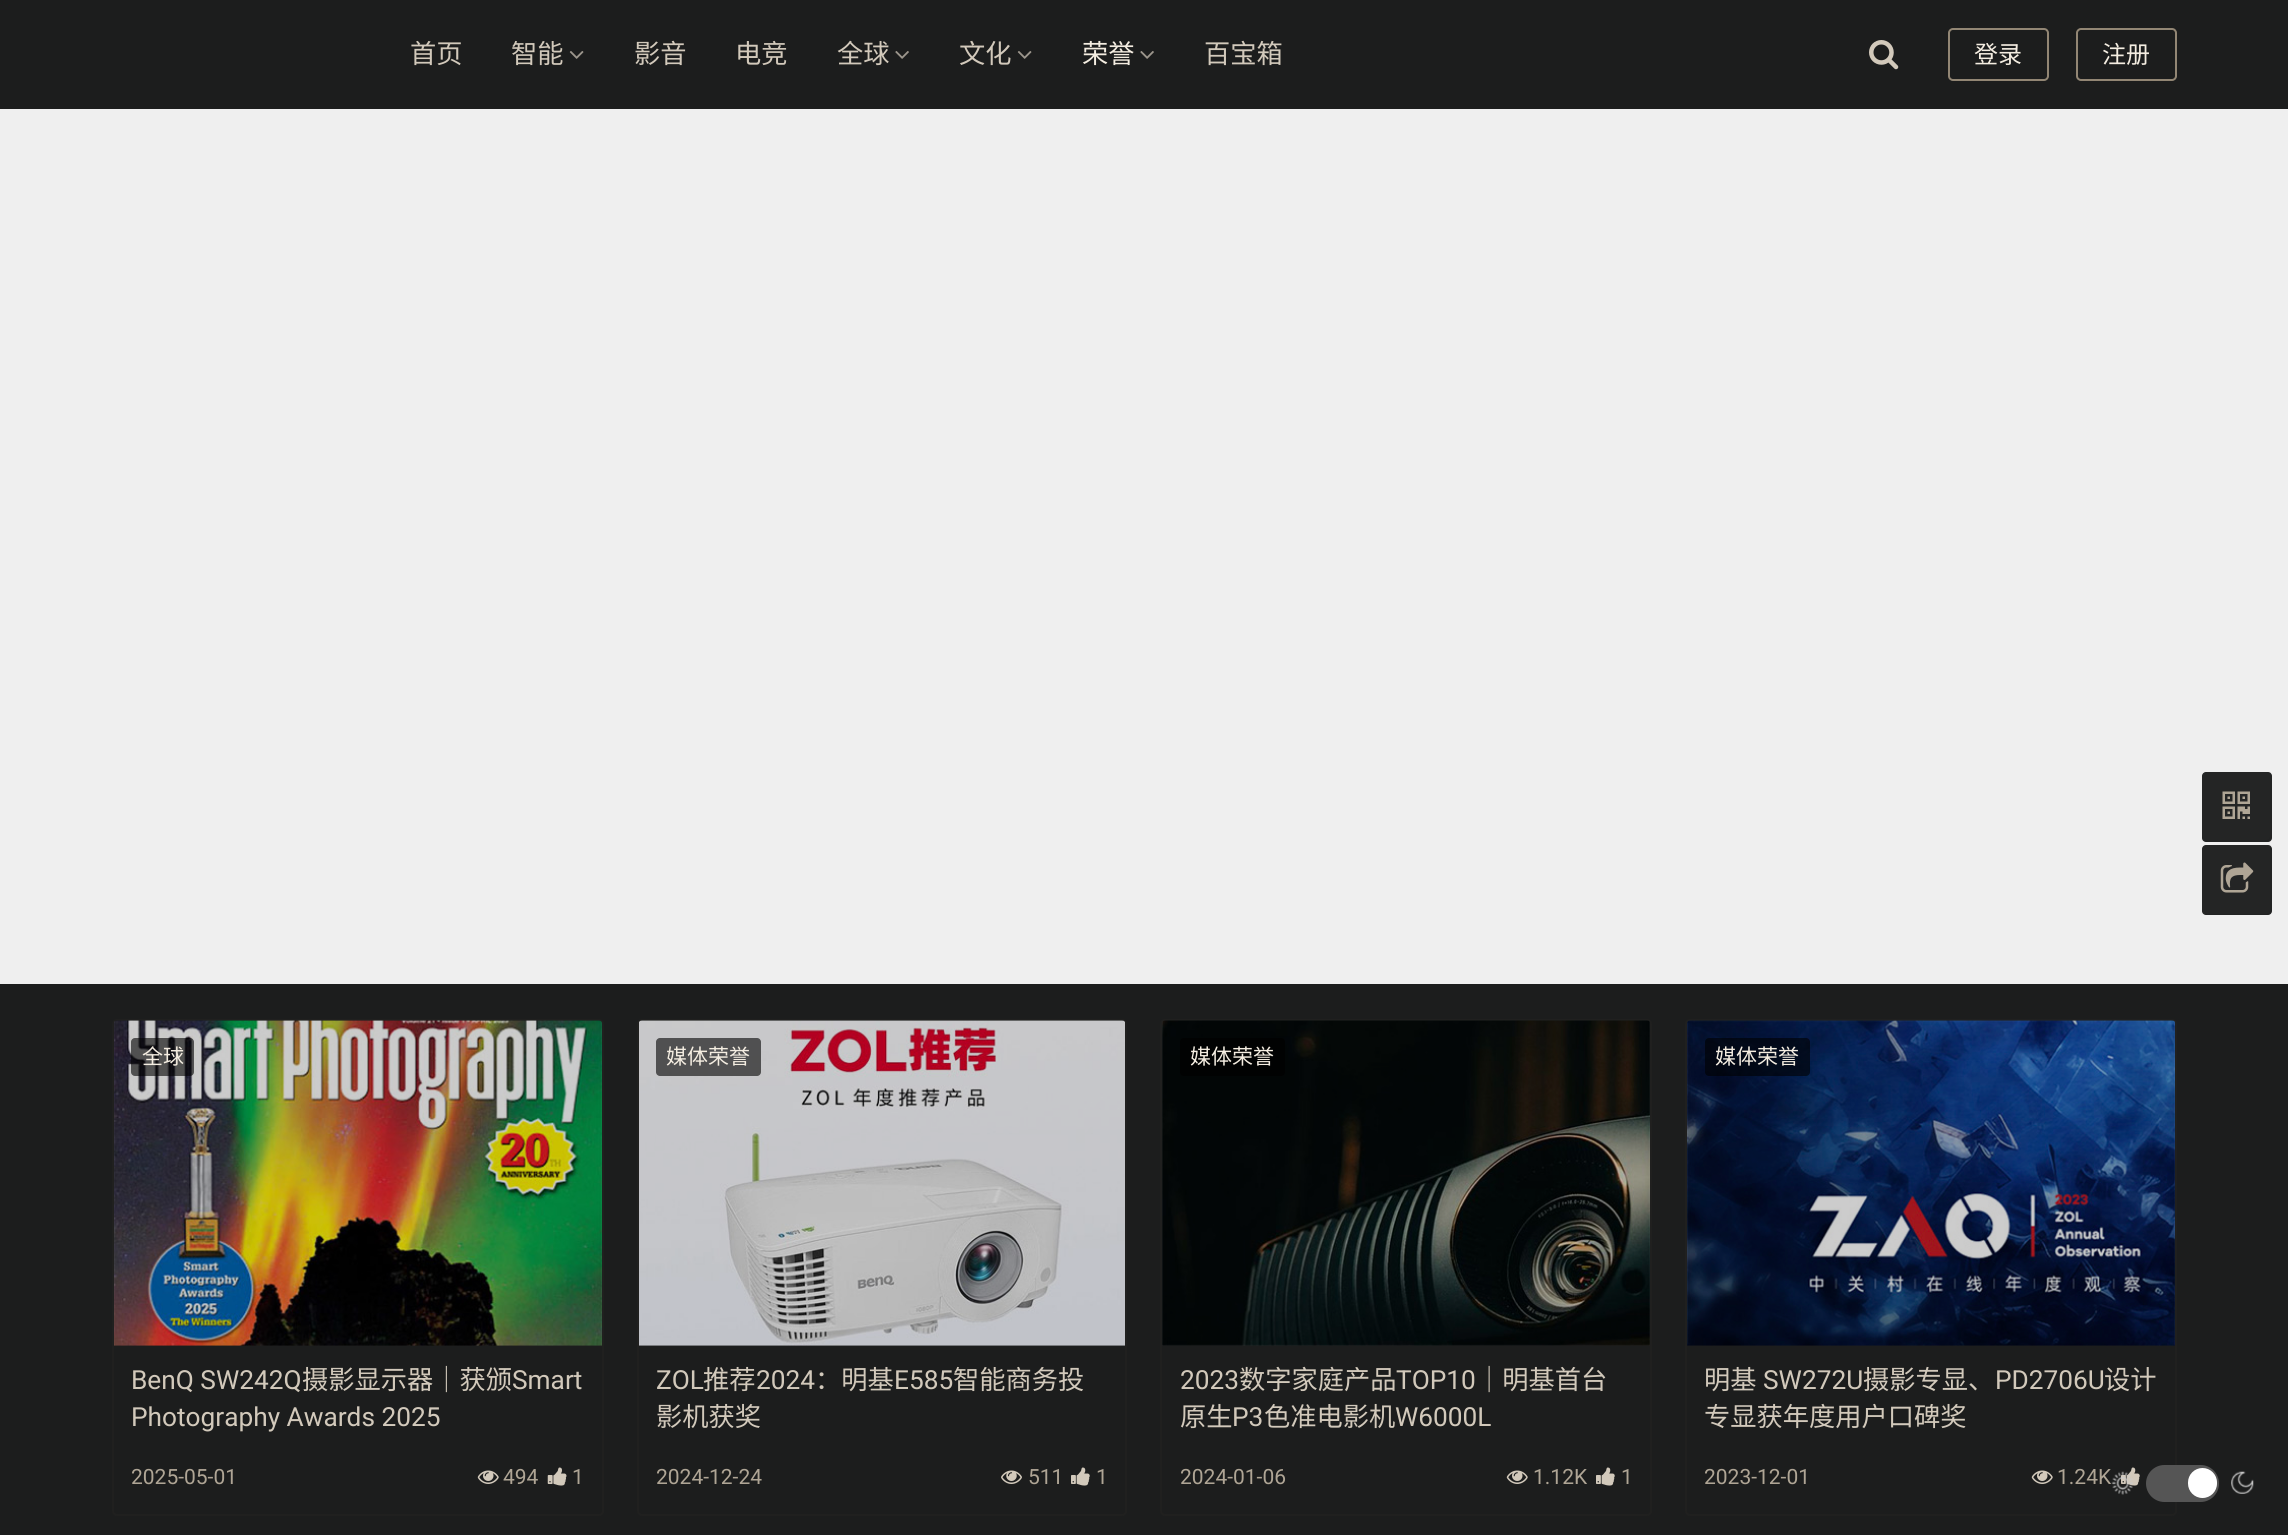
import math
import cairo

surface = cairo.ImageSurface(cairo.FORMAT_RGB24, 2288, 1535)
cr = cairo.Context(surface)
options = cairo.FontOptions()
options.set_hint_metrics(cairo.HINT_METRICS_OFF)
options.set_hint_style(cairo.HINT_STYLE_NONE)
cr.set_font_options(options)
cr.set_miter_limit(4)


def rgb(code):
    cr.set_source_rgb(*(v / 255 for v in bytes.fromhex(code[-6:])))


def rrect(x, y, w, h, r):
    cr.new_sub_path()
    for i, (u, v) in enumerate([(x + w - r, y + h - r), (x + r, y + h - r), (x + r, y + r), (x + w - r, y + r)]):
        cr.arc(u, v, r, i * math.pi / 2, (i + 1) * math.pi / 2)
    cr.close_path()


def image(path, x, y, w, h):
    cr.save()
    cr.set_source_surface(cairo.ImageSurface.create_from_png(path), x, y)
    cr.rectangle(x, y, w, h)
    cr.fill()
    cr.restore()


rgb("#1c1d1d")
cr.paint()
image("img/1.png", 569, 51, 15, 8)
image("img/2.png", 895, 51, 14, 8)
image("img/1.png", 1017, 51, 15, 8)
image("img/2.png", 1140, 51, 14, 8)
image("img/3.png", 1869, 40, 30, 30)
rrect(1949, 29, 99, 51, 4)
rgb("#928674")
cr.stroke()
rrect(2077, 29, 99, 51, 4)
cr.stroke()
rgb("#efefef")
cr.rectangle(0, 109, 2288, 875)
cr.fill()
rgb("#242525")
rrect(2202, 772, 70, 70, 4)
cr.fill()
cr.set_source_rgba(0, 0, 0, 0.05)
cr.new_path()
cr.move_to(2203, 840)
cr.curve_to(2203, 841, 2205, 842, 2206, 842)
cr.line_to(2268, 842)
cr.curve_to(2270, 842, 2272, 840, 2272, 838)
cr.line_to(2272, 776)
cr.curve_to(2272, 774, 2271, 773, 2270, 772)
cr.curve_to(2271, 776, 2270, 780, 2270, 784)
cr.line_to(2270, 815)
cr.curve_to(2270, 845, 2275, 840, 2245, 840)
cr.close_path()
cr.fill()
image("img/4.png", 2222, 791, 28, 28)
rgb("#242525")
rrect(2202, 845, 70, 70, 4)
cr.fill()
cr.set_source_rgba(0, 0, 0, 0.05)
cr.new_path()
cr.move_to(2203, 914)
cr.curve_to(2204, 915, 2205, 915, 2206, 915)
cr.line_to(2268, 915)
cr.curve_to(2270, 915, 2272, 913, 2272, 911)
cr.line_to(2272, 849)
cr.curve_to(2272, 847, 2271, 846, 2269, 845)
cr.line_to(2270, 847)
cr.line_to(2270, 910)
cr.curve_to(2270, 912, 2268, 914, 2266, 914)
cr.close_path()
cr.fill()
image("img/5.png", 2220, 862, 34, 31)
rrect(113, 1020, 490, 495, 4)
rgb("#20201f")
cr.stroke()
rgb("#1d1f1e")
cr.new_path()
cr.move_to(118, 1020)
cr.line_to(598, 1020)
cr.curve_to(600, 1020, 602, 1022, 602, 1024)
cr.line_to(602, 1346)
cr.line_to(114, 1346)
cr.line_to(114, 1024)
cr.curve_to(114, 1022, 116, 1020, 118, 1020)
cr.close_path()
cr.fill()
image("img/6.png", 114, 1020, 488, 326)
cr.set_source_rgba(0, 0, 0, 0.6)
rrect(131, 1038, 63, 38, 4)
cr.fill()
image("img/7.png", 477, 1470, 22, 14)
image("img/8.png", 547, 1467, 20, 19)
rrect(638, 1020, 488, 495, 4)
rgb("#20201f")
cr.stroke()
rgb("#1d1f1e")
cr.new_path()
cr.move_to(643, 1020)
cr.line_to(1121, 1020)
cr.curve_to(1123, 1020, 1125, 1022, 1125, 1024)
cr.line_to(1125, 1346)
cr.line_to(639, 1346)
cr.line_to(639, 1024)
cr.curve_to(639, 1022, 641, 1020, 643, 1020)
cr.close_path()
cr.fill()
image("img/9.png", 639, 1020, 486, 326)
cr.set_source_rgba(0, 0, 0, 0.6)
rrect(656, 1038, 105, 38, 4)
cr.fill()
image("img/10.png", 1001, 1470, 21, 14)
image("img/11.png", 1071, 1467, 19, 19)
rrect(1161, 1020, 490, 495, 4)
rgb("#20201f")
cr.stroke()
rgb("#1d1f1e")
cr.new_path()
cr.move_to(1166, 1020)
cr.line_to(1646, 1020)
cr.curve_to(1648, 1020, 1650, 1022, 1650, 1024)
cr.line_to(1650, 1346)
cr.line_to(1162, 1346)
cr.line_to(1162, 1024)
cr.curve_to(1162, 1022, 1164, 1020, 1166, 1020)
cr.close_path()
cr.fill()
image("img/12.png", 1162, 1020, 488, 326)
rgb("#010202")
rrect(1180, 1038, 105, 38, 4)
cr.fill()
image("img/7.png", 1506, 1470, 22, 14)
image("img/11.png", 1596, 1467, 19, 19)
rrect(1686, 1020, 490, 495, 4)
rgb("#20201f")
cr.stroke()
rgb("#1d1f1e")
cr.new_path()
cr.move_to(1691, 1020)
cr.line_to(2171, 1020)
cr.curve_to(2173, 1020, 2175, 1022, 2175, 1024)
cr.line_to(2175, 1346)
cr.line_to(1687, 1346)
cr.line_to(1687, 1024)
cr.curve_to(1687, 1022, 1689, 1020, 1691, 1020)
cr.close_path()
cr.fill()
image("img/13.png", 1687, 1020, 488, 326)
cr.set_source_rgba(0, 0, 0, 0.6)
rrect(1705, 1038, 105, 38, 4)
cr.fill()
image("img/14.png", 2031, 1470, 22, 14)
image("img/11.png", 2121, 1467, 19, 19)
rgb("#555555")
rrect(2146, 1465, 73, 37, 18.5)
cr.fill()
rgb("#ffffff")
rrect(2188, 1468, 29, 30, 14.5)
cr.fill()
image("img/16.png", 2231, 1471, 23, 23)
cr.select_font_face("Noto Sans CJK SC")
cr.set_font_size(26.25)
rgb("#d2c9bb")
for x, y, s in [
    (410, 63, "首页"),
    (511, 63, "智能"),
    (634, 63, "影音"),
    (735, 63, "电竞"),
    (837, 63, "全球"),
    (959, 63, "文化"),
]:
    cr.move_to(x, y)
    cr.show_text(s)
rgb("#f4ede1")
cr.move_to(1082, 63)
cr.show_text("荣誉")
rgb("#d2c9bb")
cr.move_to(1204, 63)
cr.show_text("百宝箱")
cr.set_font_size(24)
rgb("#f4ede1")
cr.move_to(1974, 63)
cr.show_text("登录")
cr.move_to(2102, 63)
cr.show_text("注册")
cr.set_font_size(21)
cr.move_to(142, 1064)
cr.show_text("全球")
cr.select_font_face("Roboto")
cr.set_font_size(26.25)
rgb("#d2c9bb")
cr.move_to(131, 1389)
cr.show_text("BenQ SW242Q")
cr.select_font_face("Noto Sans CJK SC")
cr.move_to(302, 1389)
cr.show_text("摄影显示器｜获颁")
cr.select_font_face("Roboto")
cr.move_to(512, 1389)
cr.show_text("Smart")
cr.move_to(131, 1426)
cr.show_text("Photography Awards 2025")
cr.set_font_size(21)
rgb("#afa595")
for x, y, s in [
    (131, 1484, "2025-05-01"),
    (503, 1484, "494"),
    (572, 1484, "1"),
]:
    cr.move_to(x, y)
    cr.show_text(s)
cr.select_font_face("Noto Sans CJK SC")
rgb("#f4ede1")
cr.move_to(666, 1064)
cr.show_text("媒体荣誉")
cr.select_font_face("Roboto")
cr.set_font_size(26.25)
rgb("#d2c9bb")
cr.move_to(656, 1389)
cr.show_text("ZOL")
cr.select_font_face("Noto Sans CJK SC")
cr.move_to(703, 1389)
cr.show_text("推荐")
cr.select_font_face("Roboto")
cr.move_to(756, 1389)
cr.show_text("2024")
cr.select_font_face("Noto Sans CJK SC")
cr.move_to(815, 1389)
cr.show_text("：明基")
cr.select_font_face("Roboto")
cr.move_to(894, 1389)
cr.show_text("E585")
cr.select_font_face("Noto Sans CJK SC")
cr.move_to(953, 1389)
cr.show_text("智能商务投")
cr.move_to(656, 1426)
cr.show_text("影机获奖")
cr.select_font_face("Roboto")
cr.set_font_size(21)
rgb("#afa595")
for x, y, s in [
    (656, 1484, "2024-12-24"),
    (1028, 1484, "511"),
    (1096, 1484, "1"),
]:
    cr.move_to(x, y)
    cr.show_text(s)
cr.select_font_face("Noto Sans CJK SC")
rgb("#f4ede1")
cr.move_to(1190, 1064)
cr.show_text("媒体荣誉")
cr.select_font_face("Roboto")
cr.set_font_size(26.25)
rgb("#d2c9bb")
cr.move_to(1180, 1389)
cr.show_text("2023")
cr.select_font_face("Noto Sans CJK SC")
cr.move_to(1239, 1389)
cr.show_text("数字家庭产品")
cr.select_font_face("Roboto")
cr.move_to(1396, 1389)
cr.show_text("TOP10")
cr.select_font_face("Noto Sans CJK SC")
cr.move_to(1476, 1389)
cr.show_text("｜明基首台")
cr.move_to(1180, 1426)
cr.show_text("原生")
cr.select_font_face("Roboto")
cr.move_to(1232, 1426)
cr.show_text("P3")
cr.select_font_face("Noto Sans CJK SC")
cr.move_to(1264, 1426)
cr.show_text("色准电影机")
cr.select_font_face("Roboto")
cr.move_to(1395, 1426)
cr.show_text("W6000L")
cr.set_font_size(21)
rgb("#afa595")
for x, y, s in [
    (1180, 1484, "2024-01-06"),
    (1533, 1484, "1.12K"),
    (1621, 1484, "1"),
]:
    cr.move_to(x, y)
    cr.show_text(s)
cr.select_font_face("Noto Sans CJK SC")
rgb("#f4ede1")
cr.move_to(1715, 1064)
cr.show_text("媒体荣誉")
cr.set_font_size(26.25)
rgb("#d2c9bb")
cr.move_to(1704, 1389)
cr.show_text("明基")
cr.select_font_face("Roboto")
cr.move_to(1763, 1389)
cr.show_text("SW272U")
cr.select_font_face("Noto Sans CJK SC")
cr.move_to(1863, 1389)
cr.show_text("摄影专显、")
cr.select_font_face("Roboto")
cr.move_to(1995, 1389)
cr.show_text("PD2706U")
cr.select_font_face("Noto Sans CJK SC")
cr.move_to(2104, 1389)
cr.show_text("设计")
cr.move_to(1704, 1426)
cr.show_text("专显获年度用户口碑奖")
cr.select_font_face("Roboto")
cr.set_font_size(21)
rgb("#afa595")
cr.move_to(1704, 1484)
cr.show_text("2023-12-01")
cr.move_to(2057, 1484)
cr.show_text("1.24K")
image("img/15.png", 2111, 1471, 22, 24)
surface.write_to_png("page.png")
